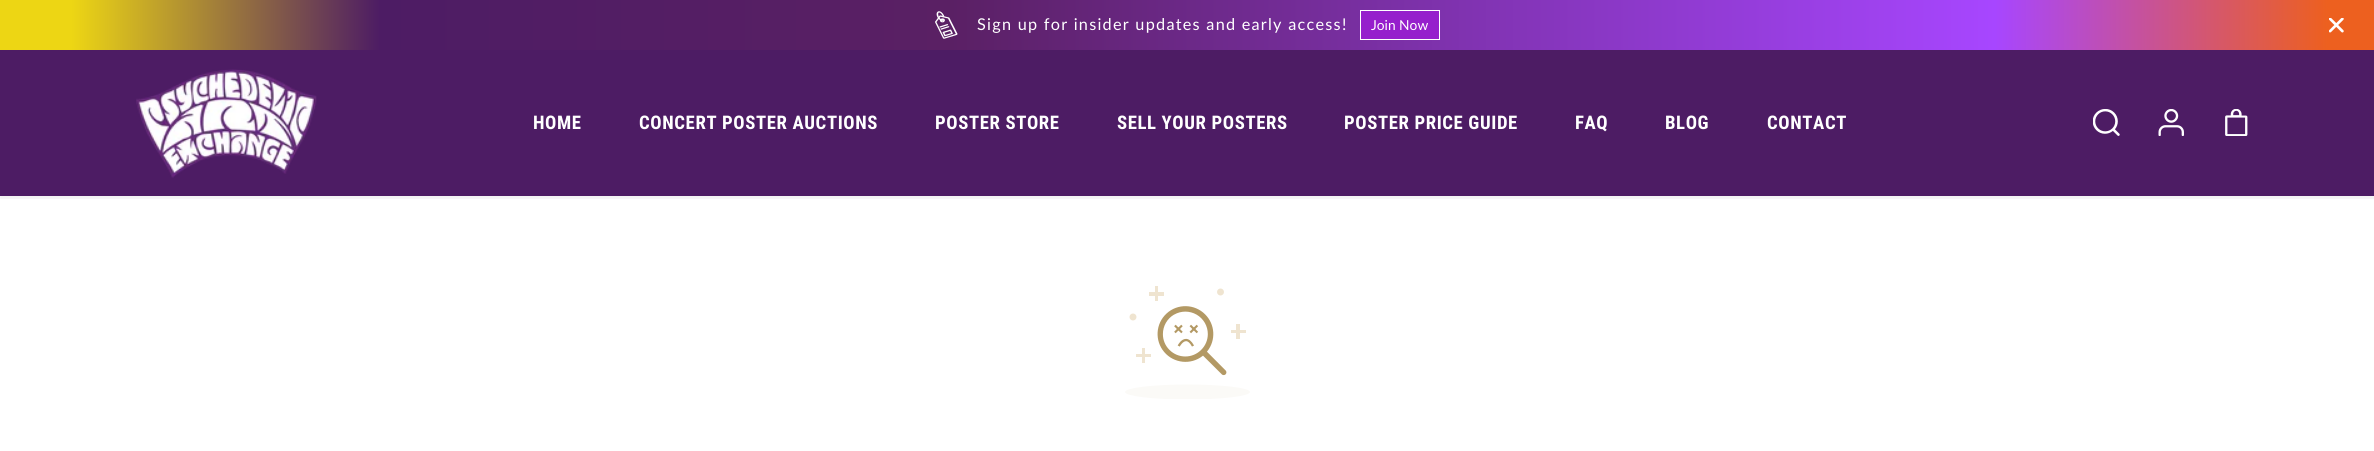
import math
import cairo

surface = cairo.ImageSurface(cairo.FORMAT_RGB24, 2374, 451)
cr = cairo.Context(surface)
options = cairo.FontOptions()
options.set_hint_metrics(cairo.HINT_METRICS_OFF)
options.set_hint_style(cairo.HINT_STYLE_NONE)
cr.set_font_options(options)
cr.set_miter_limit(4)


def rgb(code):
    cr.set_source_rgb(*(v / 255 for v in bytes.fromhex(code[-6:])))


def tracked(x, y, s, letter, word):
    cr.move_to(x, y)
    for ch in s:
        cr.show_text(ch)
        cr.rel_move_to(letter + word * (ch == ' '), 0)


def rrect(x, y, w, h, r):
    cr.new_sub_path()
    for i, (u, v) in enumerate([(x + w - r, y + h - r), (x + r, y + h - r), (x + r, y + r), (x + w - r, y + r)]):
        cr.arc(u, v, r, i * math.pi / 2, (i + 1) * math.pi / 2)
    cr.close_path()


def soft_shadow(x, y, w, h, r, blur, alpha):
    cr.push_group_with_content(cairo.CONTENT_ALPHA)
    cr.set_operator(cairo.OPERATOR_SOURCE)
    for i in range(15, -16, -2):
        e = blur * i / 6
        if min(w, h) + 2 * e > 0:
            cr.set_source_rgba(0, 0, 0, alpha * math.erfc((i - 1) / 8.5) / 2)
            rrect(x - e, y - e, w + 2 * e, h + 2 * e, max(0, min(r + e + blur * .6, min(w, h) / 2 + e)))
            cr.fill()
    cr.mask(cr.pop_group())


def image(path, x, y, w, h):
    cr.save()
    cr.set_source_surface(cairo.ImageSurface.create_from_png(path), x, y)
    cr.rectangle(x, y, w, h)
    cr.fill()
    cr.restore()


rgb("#ffffff")
cr.paint()
rgb("#4d1c64")
cr.rectangle(0, 50, 2374, 146)
cr.fill()
gradient = cairo.LinearGradient(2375, 25, 0, 25)
gradient.add_color_stop_rgba(0.02, 0.929, 0.376, 0.122, 1)
gradient.add_color_stop_rgba(0.16, 0.655, 0.275, 1, 1)
gradient.add_color_stop_rgba(0.6, 0.353, 0.125, 0.392, 1)
gradient.add_color_stop_rgba(0.84, 0.302, 0.11, 0.392, 1)
gradient.add_color_stop_rgba(0.97, 0.929, 0.839, 0.078, 1)
cr.set_source(gradient)
cr.rectangle(0, 0, 2374, 50)
cr.fill()
image("img/1.png", 935, 11, 23, 28)
rgb("#961fcc")
cr.rectangle(1360.5, 10.5, 79, 29)
cr.fill_preserve()
rgb("#ffffff")
cr.set_line_width(1)
cr.stroke()
image("img/2.png", 2329, 18, 15, 15)
cr.save()
cr.rectangle(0, 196, 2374, 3)
cr.clip()
rgb("#000000")
soft_shadow(0, 53, 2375, 146, 0, 1, 0.05)
cr.restore()
image("img/3.png", 136, 69, 181, 109)
image("img/4.png", 2093, 109, 27, 27)
image("img/5.png", 2158, 109, 26, 27)
image("img/6.png", 2225, 109, 23, 27)
image("img/7.png", 1125, 286, 125, 113)
cr.select_font_face("Lato")
cr.set_font_size(16.25)
tracked(977, 30, "Sign up for insider updates and early access!", 1.25, 0)
cr.set_font_size(13.75)
cr.move_to(1371, 30)
cr.show_text("Join Now")
cr.select_font_face("Roboto Condensed", cairo.FONT_SLANT_NORMAL, cairo.FONT_WEIGHT_BOLD)
cr.set_font_size(18.75)
for x, y, s in [
    (533, 129, "HOME"),
    (639, 129, "CONCERT POSTER AUCTIONS"),
    (935, 129, "POSTER STORE"),
    (1117, 129, "SELL YOUR POSTERS"),
    (1344, 129, "POSTER PRICE GUIDE"),
    (1575, 129, "FAQ"),
    (1665, 129, "BLOG"),
    (1767, 129, "CONTACT"),
]:
    tracked(x, y, s, 0.6, 0)
surface.write_to_png("page.png")
